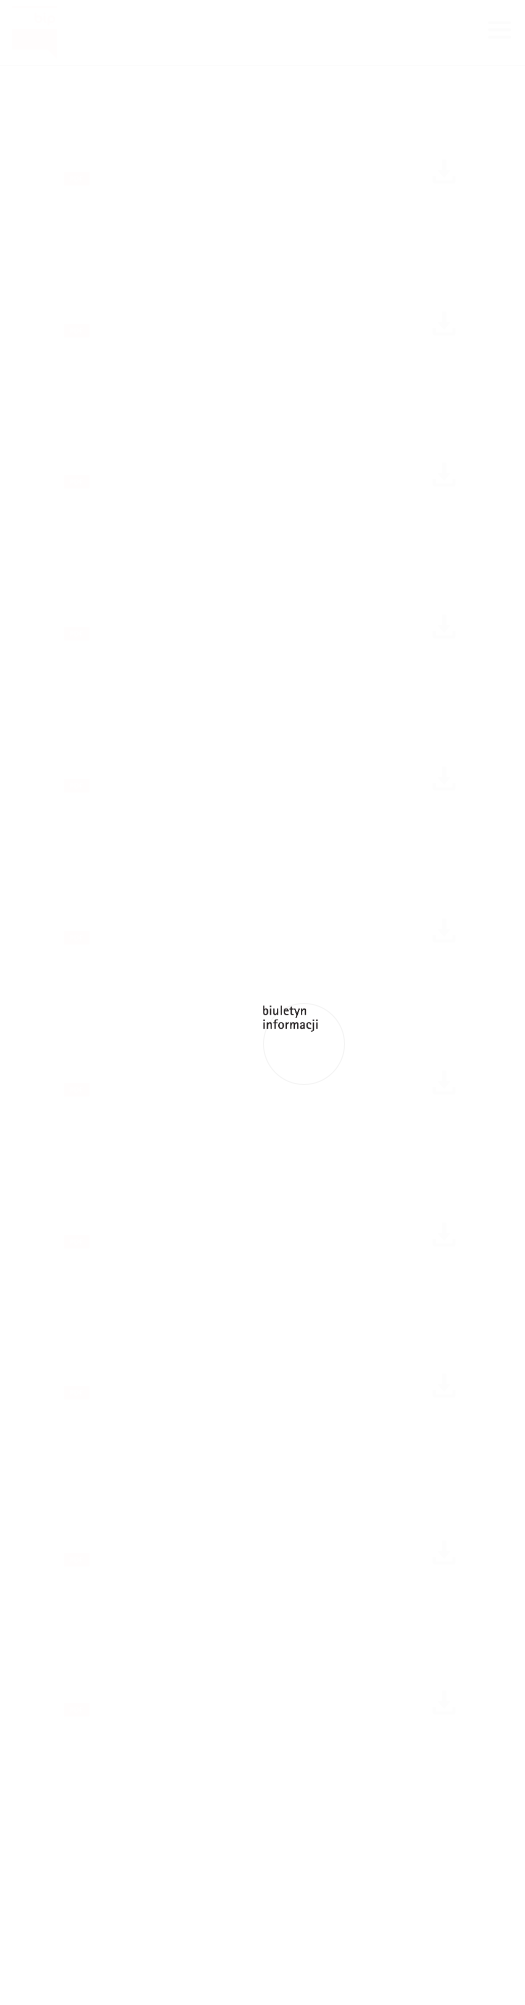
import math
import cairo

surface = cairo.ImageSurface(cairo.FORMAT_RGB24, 525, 2005)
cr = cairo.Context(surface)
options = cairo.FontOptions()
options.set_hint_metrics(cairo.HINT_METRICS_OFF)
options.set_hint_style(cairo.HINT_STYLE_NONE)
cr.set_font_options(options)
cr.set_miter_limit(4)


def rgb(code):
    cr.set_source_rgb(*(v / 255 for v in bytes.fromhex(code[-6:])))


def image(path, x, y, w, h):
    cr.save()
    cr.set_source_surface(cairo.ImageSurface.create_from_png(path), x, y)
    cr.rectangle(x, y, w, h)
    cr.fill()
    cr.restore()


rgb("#ffffff")
cr.paint()
image("img/1.png", 0, 66, 525, 168)
rgb("#fcfcfc")
cr.rectangle(0, 65, 525, 1)
cr.fill()
image("img/2.png", 12, 6, 45, 53)
image("img/3.png", 488, 21, 23, 18)
image("img/4.png", 64, 155, 30, 35)
image("img/5.png", 432, 159, 24, 25)
image("img/4.png", 64, 307, 30, 35)
image("img/5.png", 432, 311, 24, 25)
image("img/4.png", 64, 458, 30, 35)
image("img/5.png", 432, 462, 24, 25)
image("img/4.png", 64, 610, 30, 35)
image("img/5.png", 432, 614, 24, 25)
image("img/4.png", 64, 762, 30, 35)
image("img/5.png", 432, 766, 24, 25)
image("img/4.png", 64, 914, 30, 35)
image("img/5.png", 432, 918, 24, 25)
image("img/4.png", 64, 1066, 30, 35)
image("img/5.png", 432, 1070, 24, 25)
image("img/4.png", 64, 1218, 30, 35)
image("img/5.png", 432, 1222, 24, 25)
image("img/4.png", 64, 1369, 30, 35)
image("img/5.png", 432, 1373, 24, 25)
image("img/4.png", 64, 1536, 30, 35)
image("img/5.png", 432, 1540, 24, 25)
image("img/6.png", 64, 1686, 30, 35)
image("img/5.png", 432, 1690, 24, 25)
cr.arc(304, 1044, 40.5, 0, 2 * math.pi)
rgb("#f3f3f3")
cr.set_line_width(1)
cr.stroke()
image("img/7.png", 263, 1005, 55, 27)
surface.write_to_png("page.png")
